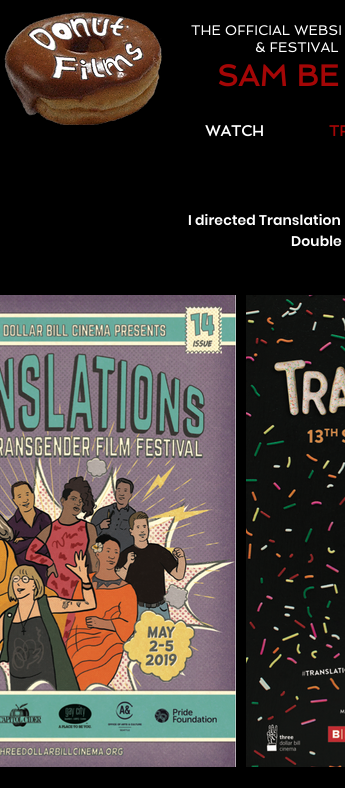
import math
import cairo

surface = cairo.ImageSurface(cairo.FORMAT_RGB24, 345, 788)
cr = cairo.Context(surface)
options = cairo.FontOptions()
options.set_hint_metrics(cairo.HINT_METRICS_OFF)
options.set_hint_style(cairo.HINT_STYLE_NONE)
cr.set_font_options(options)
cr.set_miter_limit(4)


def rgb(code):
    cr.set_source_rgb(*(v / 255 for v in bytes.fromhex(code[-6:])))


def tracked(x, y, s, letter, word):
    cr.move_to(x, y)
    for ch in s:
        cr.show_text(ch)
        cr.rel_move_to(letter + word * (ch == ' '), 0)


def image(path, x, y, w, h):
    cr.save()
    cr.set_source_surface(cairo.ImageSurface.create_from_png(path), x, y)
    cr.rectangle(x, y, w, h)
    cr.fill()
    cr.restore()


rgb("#000000")
cr.paint()
image("img/1.png", 4, 12, 158, 113)
image("img/2.png", 0, 295, 236, 472)
image("img/3.png", 246, 295, 99, 472)
cr.select_font_face("Spinnaker")
cr.set_font_size(14)
rgb("#ffffff")
cr.move_to(191, 35)
cr.show_text("THE OFFICIAL WEBSI")
cr.move_to(255, 52)
cr.show_text("& FESTIVAL")
cr.select_font_face("Spinnaker", cairo.FONT_SLANT_NORMAL, cairo.FONT_WEIGHT_BOLD)
cr.set_font_size(30)
rgb("#a40606")
cr.move_to(217, 86)
cr.show_text("SAM BE")
cr.set_font_size(15)
rgb("#ffffff")
cr.move_to(205, 136)
cr.show_text("WATCH")
rgb("#a40606")
cr.move_to(329, 136)
cr.show_text("TR")
cr.select_font_face("Poppins SemiBold")
cr.set_font_size(14)
rgb("#ffffff")
tracked(188, 225, "I directed Translation", 0.1, 0)
tracked(291, 246, "Double", 0.1, 0)
surface.write_to_png("page.png")
